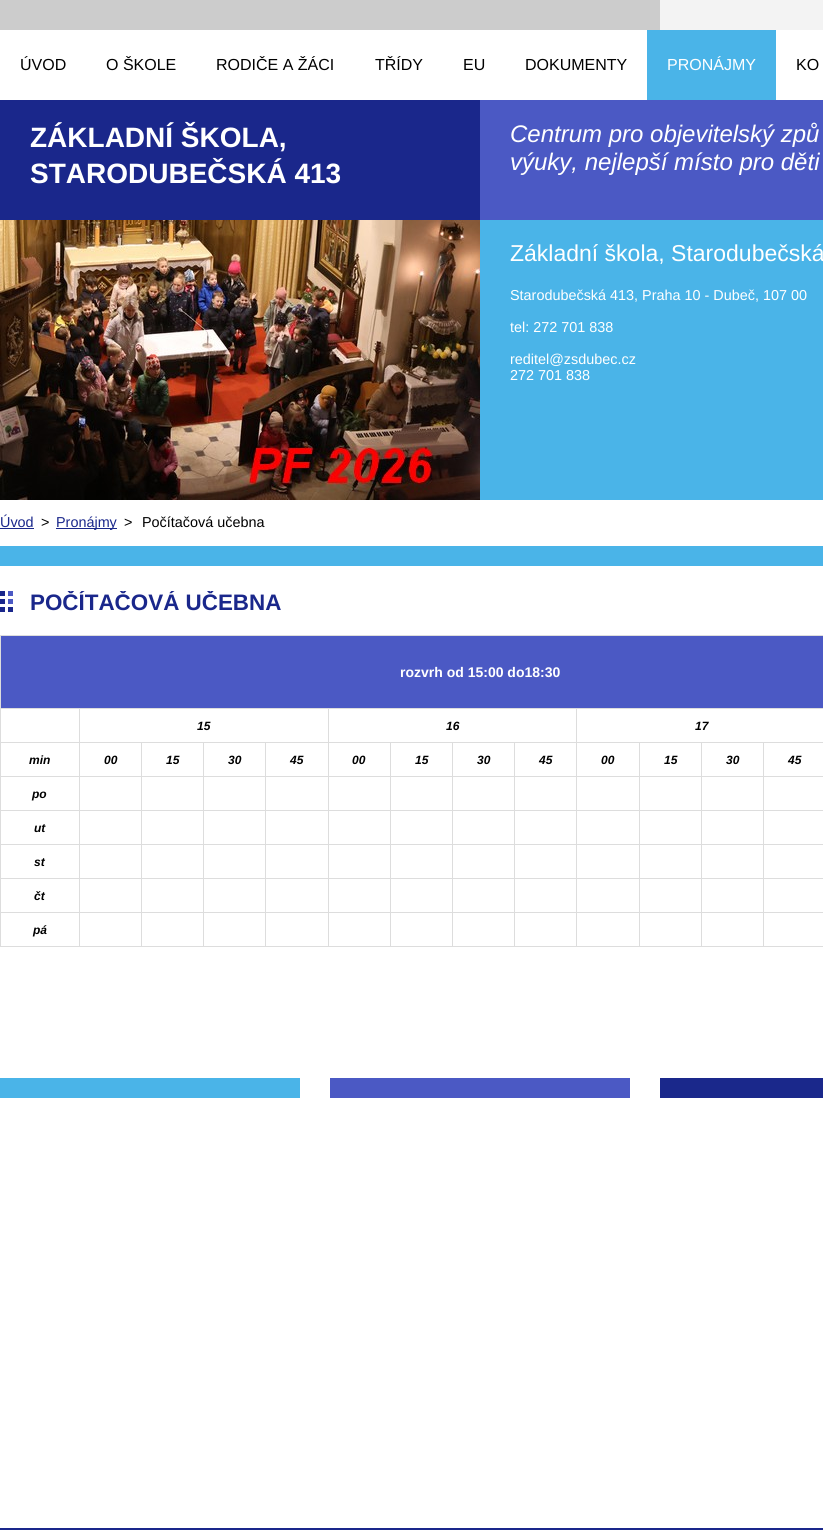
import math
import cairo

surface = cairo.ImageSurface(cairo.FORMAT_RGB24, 823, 1530)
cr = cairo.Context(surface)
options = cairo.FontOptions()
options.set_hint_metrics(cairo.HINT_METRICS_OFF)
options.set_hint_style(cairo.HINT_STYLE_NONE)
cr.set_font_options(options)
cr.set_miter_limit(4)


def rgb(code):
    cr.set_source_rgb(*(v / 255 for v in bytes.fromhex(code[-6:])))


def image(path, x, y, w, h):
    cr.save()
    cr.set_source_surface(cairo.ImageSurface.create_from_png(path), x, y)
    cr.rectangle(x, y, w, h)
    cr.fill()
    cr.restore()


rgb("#ffffff")
cr.paint()
image("img/1.png", 0, 0, 823, 100)
for x, y, w, h, color in [
    (660, 0, 163, 30, "#f3f3f3"),
    (647, 30, 129, 70, "#4ab4e8"),
    (0, 100, 480, 120, "#1a278b"),
    (480, 100, 343, 120, "#4b59c4"),
]:
    rgb(color)
    cr.rectangle(x, y, w, h)
    cr.fill()
image("img/2.png", 0, 220, 480, 280)
for x, y, w, h, color in [
    (480, 220, 343, 280, "#4ab4e8"),
    (0, 528, 34, 1, "#1a278b"),
    (56, 528, 61, 1, "#1a278b"),
    (0, 546, 823, 20, "#4ab4e8"),
]:
    rgb(color)
    cr.rectangle(x, y, w, h)
    cr.fill()
image("img/3.png", 0, 591, 13, 21)
for x, y, w, h, color in [
    (0, 635, 823, 1, "#dddddd"),
    (0, 946, 823, 1, "#dddddd"),
    (0, 635, 1, 312, "#dddddd"),
    (1, 636, 822, 72, "#4b59c4"),
    (576, 708, 247, 1, "#dddddd"),
    (763, 742, 60, 1, "#dddddd"),
    (763, 776, 60, 1, "#dddddd"),
    (763, 810, 60, 1, "#dddddd"),
    (763, 844, 60, 1, "#dddddd"),
    (763, 878, 60, 1, "#dddddd"),
    (763, 912, 60, 1, "#dddddd"),
    (763, 912, 1, 35, "#dddddd"),
    (701, 912, 63, 1, "#dddddd"),
    (763, 878, 1, 35, "#dddddd"),
    (701, 878, 63, 1, "#dddddd"),
    (763, 844, 1, 35, "#dddddd"),
    (701, 844, 63, 1, "#dddddd"),
    (763, 810, 1, 35, "#dddddd"),
    (701, 810, 63, 1, "#dddddd"),
    (763, 776, 1, 35, "#dddddd"),
    (701, 776, 63, 1, "#dddddd"),
    (763, 742, 1, 35, "#dddddd"),
    (701, 742, 63, 1, "#dddddd"),
    (701, 912, 1, 35, "#dddddd"),
    (639, 912, 63, 1, "#dddddd"),
    (701, 878, 1, 35, "#dddddd"),
    (639, 878, 63, 1, "#dddddd"),
    (701, 844, 1, 35, "#dddddd"),
    (639, 844, 63, 1, "#dddddd"),
    (701, 810, 1, 35, "#dddddd"),
    (639, 810, 63, 1, "#dddddd"),
    (701, 776, 1, 35, "#dddddd"),
    (639, 776, 63, 1, "#dddddd"),
    (701, 742, 1, 35, "#dddddd"),
    (639, 742, 63, 1, "#dddddd"),
    (639, 912, 1, 35, "#dddddd"),
    (576, 912, 64, 1, "#dddddd"),
    (639, 878, 1, 35, "#dddddd"),
    (576, 878, 64, 1, "#dddddd"),
    (639, 844, 1, 35, "#dddddd"),
    (576, 844, 64, 1, "#dddddd"),
    (639, 810, 1, 35, "#dddddd"),
    (576, 810, 64, 1, "#dddddd"),
    (639, 776, 1, 35, "#dddddd"),
    (576, 776, 64, 1, "#dddddd"),
    (639, 742, 1, 35, "#dddddd"),
    (576, 742, 64, 1, "#dddddd"),
    (576, 912, 1, 35, "#dddddd"),
    (514, 912, 63, 1, "#dddddd"),
    (576, 878, 1, 35, "#dddddd"),
    (514, 878, 63, 1, "#dddddd"),
    (576, 844, 1, 35, "#dddddd"),
    (514, 844, 63, 1, "#dddddd"),
    (576, 810, 1, 35, "#dddddd"),
    (514, 810, 63, 1, "#dddddd"),
    (576, 776, 1, 35, "#dddddd"),
    (514, 776, 63, 1, "#dddddd"),
    (576, 742, 1, 35, "#dddddd"),
    (514, 742, 63, 1, "#dddddd"),
    (576, 708, 1, 35, "#dddddd"),
    (328, 708, 249, 1, "#dddddd"),
    (514, 912, 1, 35, "#dddddd"),
    (452, 912, 63, 1, "#dddddd"),
    (514, 878, 1, 35, "#dddddd"),
    (452, 878, 63, 1, "#dddddd"),
    (514, 844, 1, 35, "#dddddd"),
    (452, 844, 63, 1, "#dddddd"),
    (514, 810, 1, 35, "#dddddd"),
    (452, 810, 63, 1, "#dddddd"),
    (514, 776, 1, 35, "#dddddd"),
    (452, 776, 63, 1, "#dddddd"),
    (514, 742, 1, 35, "#dddddd"),
    (452, 742, 63, 1, "#dddddd"),
    (452, 912, 1, 35, "#dddddd"),
    (390, 912, 63, 1, "#dddddd"),
    (452, 878, 1, 35, "#dddddd"),
    (390, 878, 63, 1, "#dddddd"),
    (452, 844, 1, 35, "#dddddd"),
    (390, 844, 63, 1, "#dddddd"),
    (452, 810, 1, 35, "#dddddd"),
    (390, 810, 63, 1, "#dddddd"),
    (452, 776, 1, 35, "#dddddd"),
    (390, 776, 63, 1, "#dddddd"),
    (452, 742, 1, 35, "#dddddd"),
    (390, 742, 63, 1, "#dddddd"),
    (390, 912, 1, 35, "#dddddd"),
    (328, 912, 63, 1, "#dddddd"),
    (390, 878, 1, 35, "#dddddd"),
    (328, 878, 63, 1, "#dddddd"),
    (390, 844, 1, 35, "#dddddd"),
    (328, 844, 63, 1, "#dddddd"),
    (390, 810, 1, 35, "#dddddd"),
    (328, 810, 63, 1, "#dddddd"),
    (390, 776, 1, 35, "#dddddd"),
    (328, 776, 63, 1, "#dddddd"),
    (390, 742, 1, 35, "#dddddd"),
    (328, 742, 63, 1, "#dddddd"),
    (328, 912, 1, 35, "#dddddd"),
    (265, 912, 64, 1, "#dddddd"),
    (328, 878, 1, 35, "#dddddd"),
    (265, 878, 64, 1, "#dddddd"),
    (328, 844, 1, 35, "#dddddd"),
    (265, 844, 64, 1, "#dddddd"),
    (328, 810, 1, 35, "#dddddd"),
    (265, 810, 64, 1, "#dddddd"),
    (328, 776, 1, 35, "#dddddd"),
    (265, 776, 64, 1, "#dddddd"),
    (328, 742, 1, 35, "#dddddd"),
    (265, 742, 64, 1, "#dddddd"),
    (328, 708, 1, 35, "#dddddd"),
    (79, 708, 250, 1, "#dddddd"),
    (265, 912, 1, 35, "#dddddd"),
    (203, 912, 63, 1, "#dddddd"),
    (265, 878, 1, 35, "#dddddd"),
    (203, 878, 63, 1, "#dddddd"),
    (265, 844, 1, 35, "#dddddd"),
    (203, 844, 63, 1, "#dddddd"),
    (265, 810, 1, 35, "#dddddd"),
    (203, 810, 63, 1, "#dddddd"),
    (265, 776, 1, 35, "#dddddd"),
    (203, 776, 63, 1, "#dddddd"),
    (265, 742, 1, 35, "#dddddd"),
    (203, 742, 63, 1, "#dddddd"),
    (203, 912, 1, 35, "#dddddd"),
    (141, 912, 63, 1, "#dddddd"),
    (203, 878, 1, 35, "#dddddd"),
    (141, 878, 63, 1, "#dddddd"),
    (203, 844, 1, 35, "#dddddd"),
    (141, 844, 63, 1, "#dddddd"),
    (203, 810, 1, 35, "#dddddd"),
    (141, 810, 63, 1, "#dddddd"),
    (203, 776, 1, 35, "#dddddd"),
    (141, 776, 63, 1, "#dddddd"),
    (203, 742, 1, 35, "#dddddd"),
    (141, 742, 63, 1, "#dddddd"),
    (141, 912, 1, 35, "#dddddd"),
    (79, 912, 63, 1, "#dddddd"),
    (141, 878, 1, 35, "#dddddd"),
    (79, 878, 63, 1, "#dddddd"),
    (141, 844, 1, 35, "#dddddd"),
    (79, 844, 63, 1, "#dddddd"),
    (141, 810, 1, 35, "#dddddd"),
    (79, 810, 63, 1, "#dddddd"),
    (141, 776, 1, 35, "#dddddd"),
    (79, 776, 63, 1, "#dddddd"),
    (141, 742, 1, 35, "#dddddd"),
    (79, 742, 63, 1, "#dddddd"),
    (79, 912, 1, 35, "#dddddd"),
    (0, 912, 80, 1, "#dddddd"),
    (79, 878, 1, 35, "#dddddd"),
    (0, 878, 80, 1, "#dddddd"),
    (79, 844, 1, 35, "#dddddd"),
    (0, 844, 80, 1, "#dddddd"),
    (79, 810, 1, 35, "#dddddd"),
    (0, 810, 80, 1, "#dddddd"),
    (79, 776, 1, 35, "#dddddd"),
    (0, 776, 80, 1, "#dddddd"),
    (79, 742, 1, 35, "#dddddd"),
    (0, 742, 80, 1, "#dddddd"),
    (79, 708, 1, 35, "#dddddd"),
    (0, 708, 80, 1, "#dddddd"),
    (0, 1078, 300, 20, "#4ab4e8"),
    (330, 1078, 300, 20, "#4b59c4"),
    (660, 1078, 163, 20, "#1a288b"),
    (0, 1528, 823, 2, "#1a278b"),
]:
    rgb(color)
    cr.rectangle(x, y, w, h)
    cr.fill()
cr.select_font_face("Liberation Sans")
cr.set_font_size(16)
rgb("#000000")
for x, y, s in [
    (20, 70, "ÚVOD"),
    (106, 70, "O ŠKOLE"),
    (216, 70, "RODIČE A ŽÁCI"),
    (375, 70, "TŘÍDY"),
    (463, 70, "EU"),
    (525, 70, "DOKUMENTY"),
]:
    cr.move_to(x, y)
    cr.show_text(s)
rgb("#ffffff")
cr.move_to(667, 70)
cr.show_text("PRONÁJMY")
rgb("#000000")
cr.move_to(796, 70)
cr.show_text("KO")
cr.select_font_face("Liberation Sans", cairo.FONT_SLANT_NORMAL, cairo.FONT_WEIGHT_BOLD)
cr.set_font_size(28)
rgb("#ffffff")
cr.move_to(30, 147)
cr.show_text("ZÁKLADNÍ ŠKOLA,")
cr.move_to(30, 183)
cr.show_text("STARODUBEČSKÁ 413")
cr.select_font_face("Liberation Sans", cairo.FONT_SLANT_ITALIC)
cr.set_font_size(24)
cr.move_to(510, 142)
cr.show_text("Centrum pro objevitelský způ")
cr.move_to(510, 170)
cr.show_text("výuky, nejlepší místo pro děti")
cr.select_font_face("Liberation Sans")
cr.set_font_size(23)
cr.move_to(510, 261)
cr.show_text("Základní škola, Starodubečská")
cr.set_font_size(14.4)
for x, y, s in [
    (510, 300, "Starodubečská 413, Praha 10 - Dubeč, 107 00"),
    (510, 332, "tel: 272 701 838"),
    (510, 364, "reditel@zsdubec.cz"),
    (510, 380, "272 701 838"),
]:
    cr.move_to(x, y)
    cr.show_text(s)
rgb("#1a278b")
cr.move_to(0, 527)
cr.show_text("Úvod")
rgb("#000000")
cr.move_to(41, 527)
cr.show_text(">")
rgb("#1a278b")
cr.move_to(56, 527)
cr.show_text("Pronájmy")
rgb("#000000")
cr.move_to(124, 527)
cr.show_text(">")
cr.move_to(142, 527)
cr.show_text("Počítačová učebna")
cr.save()
cr.rectangle(0, 591, 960, 412)
cr.clip()
cr.select_font_face("Liberation Sans", cairo.FONT_SLANT_NORMAL, cairo.FONT_WEIGHT_BOLD)
cr.set_font_size(22.4)
rgb("#1a278b")
cr.move_to(30, 610)
cr.show_text("POČÍTAČOVÁ UČEBNA")
cr.restore()
cr.select_font_face("Liberation Sans", cairo.FONT_SLANT_NORMAL, cairo.FONT_WEIGHT_BOLD)
cr.set_font_size(14)
rgb("#ffffff")
cr.move_to(400, 677)
cr.show_text("rozvrh od 15:00 do18:30")
cr.select_font_face("Liberation Sans", cairo.FONT_SLANT_ITALIC, cairo.FONT_WEIGHT_BOLD)
cr.set_font_size(12)
rgb("#000000")
for x, y, s in [
    (197, 730, "15"),
    (446, 730, "16"),
    (695, 730, "17"),
    (29, 764, "min"),
    (104, 764, "00"),
    (166, 764, "15"),
    (228, 764, "30"),
    (290, 764, "45"),
    (352, 764, "00"),
    (415, 764, "15"),
    (477, 764, "30"),
    (539, 764, "45"),
    (601, 764, "00"),
    (664, 764, "15"),
    (726, 764, "30"),
    (788, 764, "45"),
    (32, 798, "po"),
    (34, 832, "ut"),
    (34, 866, "st"),
    (34, 900, "čt"),
    (33, 934, "pá"),
]:
    cr.move_to(x, y)
    cr.show_text(s)
surface.write_to_png("page.png")
